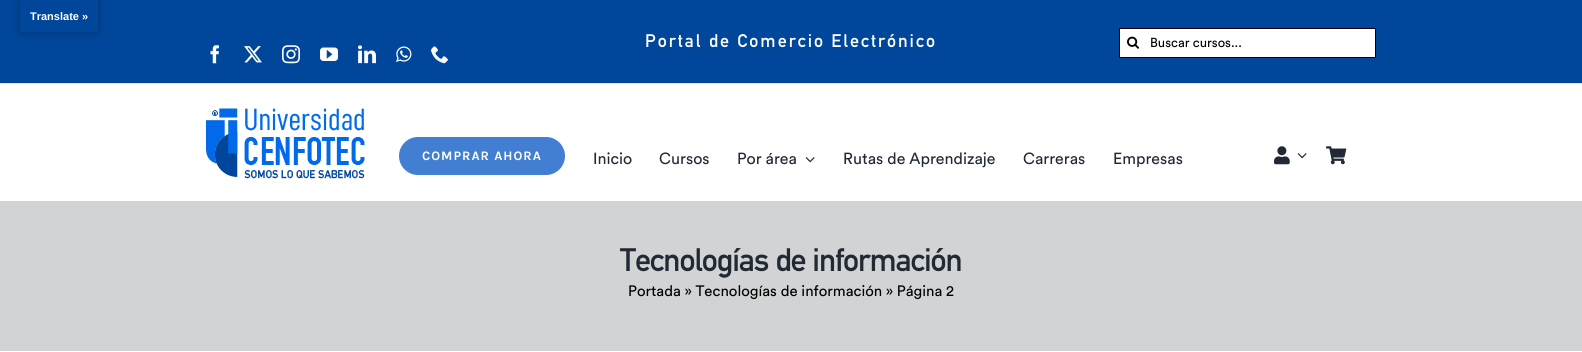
import math
import cairo

surface = cairo.ImageSurface(cairo.FORMAT_RGB24, 1582, 352)
cr = cairo.Context(surface)
options = cairo.FontOptions()
options.set_hint_metrics(cairo.HINT_METRICS_OFF)
options.set_hint_style(cairo.HINT_STYLE_NONE)
cr.set_font_options(options)
cr.set_miter_limit(4)


def rgb(code):
    cr.set_source_rgb(*(v / 255 for v in bytes.fromhex(code[-6:])))


def tracked(x, y, s, letter, word):
    cr.move_to(x, y)
    for ch in s:
        cr.show_text(ch)
        cr.rel_move_to(letter + word * (ch == ' '), 0)


def rrect(x, y, w, h, r):
    cr.new_sub_path()
    for i, (u, v) in enumerate([(x + w - r, y + h - r), (x + r, y + h - r), (x + r, y + r), (x + w - r, y + r)]):
        cr.arc(u, v, r, i * math.pi / 2, (i + 1) * math.pi / 2)
    cr.close_path()


def soft_shadow(x, y, w, h, r, blur, alpha):
    cr.push_group_with_content(cairo.CONTENT_ALPHA)
    cr.set_operator(cairo.OPERATOR_SOURCE)
    for i in range(15, -16, -2):
        e = blur * i / 6
        if min(w, h) + 2 * e > 0:
            cr.set_source_rgba(0, 0, 0, alpha * math.erfc((i - 1) / 8.5) / 2)
            rrect(x - e, y - e, w + 2 * e, h + 2 * e, max(0, min(r + e + blur * .6, min(w, h) / 2 + e)))
            cr.fill()
    cr.mask(cr.pop_group())


def image(path, x, y, w, h):
    cr.save()
    cr.set_source_surface(cairo.ImageSurface.create_from_png(path), x, y)
    cr.rectangle(x, y, w, h)
    cr.fill()
    cr.restore()


rgb("#ffffff")
cr.paint()
rgb("#00479b")
cr.rectangle(0, 0, 1582, 83)
cr.fill()
cr.save()
cr.set_fill_rule(cairo.FILL_RULE_EVEN_ODD)
cr.new_path()
cr.move_to(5, 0)
cr.line_to(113, 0)
cr.line_to(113, 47)
cr.line_to(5, 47)
cr.close_path()
cr.move_to(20, 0)
cr.line_to(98, 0)
cr.line_to(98, 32)
cr.line_to(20, 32)
cr.close_path()
cr.clip()
rgb("#000000")
soft_shadow(20, 0, 78, 32, 0, 4.5, 0.3)
cr.restore()
rgb("#ffffff")
cr.rectangle(1119.5, 28.5, 256, 29)
cr.fill_preserve()
rgb("#000000")
cr.set_line_width(1)
cr.stroke()
image("img/1.png", 1127, 36, 12, 13)
image("img/2.png", 210, 45, 9, 19)
image("img/3.png", 244, 46, 18, 17)
image("img/4.png", 282, 45, 18, 19)
image("img/5.png", 320, 47, 18, 14)
image("img/6.png", 358, 45, 18, 19)
image("img/7.png", 396, 46, 16, 16)
image("img/8.png", 431, 46, 17, 18)
rgb("#eaeaea")
cr.rectangle(0, 83, 1582, 1)
cr.fill()
image("img/9.png", 206, 108, 159, 71)
rgb("#427ed1")
rrect(399, 137, 166, 38, 19)
cr.fill()
image("img/10.png", 805, 157, 10, 6)
image("img/11.png", 1274, 146, 16, 19)
image("img/10.png", 1297, 153, 10, 6)
image("img/12.png", 1326, 146, 21, 19)
rgb("#d1d3d4")
cr.rectangle(0, 201, 1582, 150)
cr.fill()
cr.select_font_face("Liberation Sans", cairo.FONT_SLANT_NORMAL, cairo.FONT_WEIGHT_BOLD)
cr.set_font_size(11)
rgb("#ffffff")
cr.move_to(30, 20)
cr.show_text("Translate »")
cr.select_font_face("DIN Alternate", cairo.FONT_SLANT_NORMAL, cairo.FONT_WEIGHT_BOLD)
cr.set_font_size(18)
tracked(645, 47, "Portal de Comercio Electrónico", 2, 0)
cr.select_font_face("Circular")
cr.set_font_size(13)
rgb("#000000")
cr.move_to(1150, 47)
cr.show_text("Buscar cursos...")
cr.select_font_face("Karla", cairo.FONT_SLANT_NORMAL, cairo.FONT_WEIGHT_BOLD)
rgb("#ffffff")
tracked(422, 160, "COMPRAR AHORA", 1, 0)
cr.select_font_face("Circular")
cr.set_font_size(16)
rgb("#212934")
for x, y, s in [
    (593, 164, "Inicio"),
    (659, 164, "Cursos"),
    (737, 164, "Por área"),
    (843, 164, "Rutas de Aprendizaje"),
    (1023, 164, "Carreras"),
    (1113, 164, "Empresas"),
]:
    cr.move_to(x, y)
    cr.show_text(s)
cr.select_font_face("DIN Alternate", cairo.FONT_SLANT_NORMAL, cairo.FONT_WEIGHT_BOLD)
cr.set_font_size(32)
tracked(620, 271, "Tecnologías de información", -1, 0)
cr.select_font_face("Circular")
cr.set_font_size(15)
rgb("#000000")
cr.move_to(628, 296)
cr.show_text("Portada » Tecnologías de información » Página 2")
surface.write_to_png("page.png")
